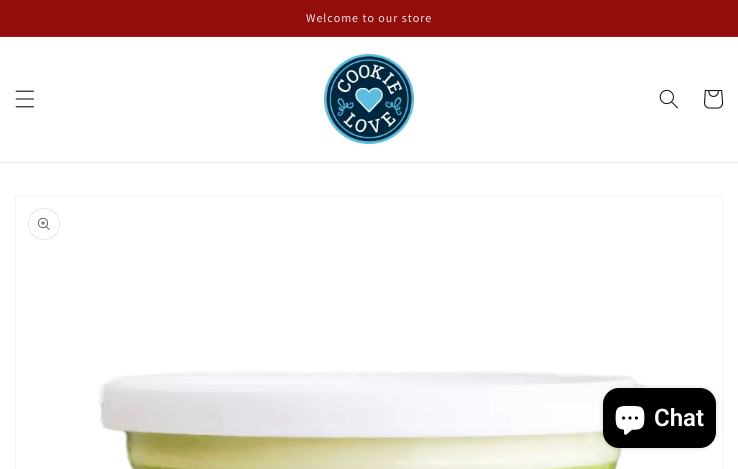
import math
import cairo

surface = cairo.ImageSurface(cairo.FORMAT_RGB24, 738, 469)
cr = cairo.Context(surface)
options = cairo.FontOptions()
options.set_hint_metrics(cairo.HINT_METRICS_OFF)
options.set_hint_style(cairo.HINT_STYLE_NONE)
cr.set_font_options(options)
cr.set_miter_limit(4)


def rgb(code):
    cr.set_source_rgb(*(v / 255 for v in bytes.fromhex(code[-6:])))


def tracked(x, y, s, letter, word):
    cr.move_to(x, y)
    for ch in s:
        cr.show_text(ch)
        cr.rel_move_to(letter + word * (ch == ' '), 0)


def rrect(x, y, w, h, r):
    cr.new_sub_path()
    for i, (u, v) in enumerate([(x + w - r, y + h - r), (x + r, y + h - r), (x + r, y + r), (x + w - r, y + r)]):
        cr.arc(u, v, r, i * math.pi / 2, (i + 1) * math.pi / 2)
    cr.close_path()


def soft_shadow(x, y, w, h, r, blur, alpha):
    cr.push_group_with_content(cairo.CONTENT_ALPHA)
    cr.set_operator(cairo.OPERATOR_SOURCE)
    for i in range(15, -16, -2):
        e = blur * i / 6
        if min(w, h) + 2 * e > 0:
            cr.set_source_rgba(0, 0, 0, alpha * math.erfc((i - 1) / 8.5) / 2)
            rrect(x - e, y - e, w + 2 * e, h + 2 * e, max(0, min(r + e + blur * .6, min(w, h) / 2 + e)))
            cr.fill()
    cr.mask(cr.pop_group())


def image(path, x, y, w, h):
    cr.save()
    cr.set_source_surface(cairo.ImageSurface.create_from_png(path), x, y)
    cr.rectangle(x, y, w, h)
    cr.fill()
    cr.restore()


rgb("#ffffff")
cr.paint()
for x, y, w, h, color in [
    (0, 0, 738, 36, "#930d0d"),
    (0, 36, 738, 1, "#9c2020"),
    (0, 162, 738, 1, "#ececec"),
]:
    rgb(color)
    cr.rectangle(x, y, w, h)
    cr.fill()
image("img/1.png", 15, 90, 20, 18)
image("img/2.png", 324, 54, 90, 90)
image("img/3.png", 659, 89, 19, 20)
image("img/4.png", 704, 90, 20, 19)
cr.rectangle(15.5, 195.5, 707, 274)
rgb("#f3f3f3")
cr.set_line_width(1)
cr.stroke()
image("img/5.png", 98, 370, 548, 99)
cr.arc(44, 224, 15.5, 0, 2 * math.pi)
rgb("#e7e7e7")
cr.stroke()
image("img/6.png", 38, 218, 12, 12)
rgb("#000000")
soft_shadow(603, 388, 113, 60, 16, 2.5, 0.15)
rgb("#000000")
rrect(603, 388, 113, 60, 16)
cr.fill()
image("img/7.png", 615, 406, 30, 29)
cr.select_font_face("Assistant")
cr.set_font_size(12)
rgb("#ffffff")
tracked(306, 22, "Welcome to our store", 1, 0)
cr.select_font_face("Roboto SemiBold")
cr.set_font_size(24)
cr.move_to(654, 426)
cr.show_text("Chat")
surface.write_to_png("page.png")
